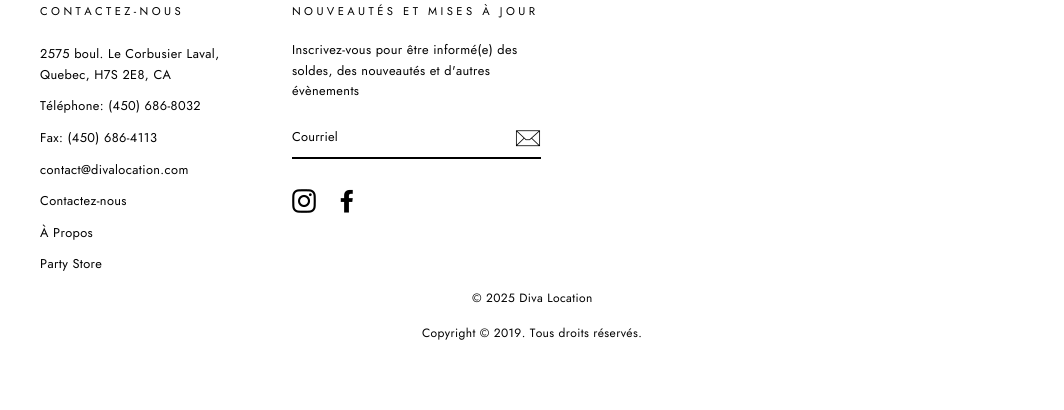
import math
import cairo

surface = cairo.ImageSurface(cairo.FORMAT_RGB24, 1064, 410)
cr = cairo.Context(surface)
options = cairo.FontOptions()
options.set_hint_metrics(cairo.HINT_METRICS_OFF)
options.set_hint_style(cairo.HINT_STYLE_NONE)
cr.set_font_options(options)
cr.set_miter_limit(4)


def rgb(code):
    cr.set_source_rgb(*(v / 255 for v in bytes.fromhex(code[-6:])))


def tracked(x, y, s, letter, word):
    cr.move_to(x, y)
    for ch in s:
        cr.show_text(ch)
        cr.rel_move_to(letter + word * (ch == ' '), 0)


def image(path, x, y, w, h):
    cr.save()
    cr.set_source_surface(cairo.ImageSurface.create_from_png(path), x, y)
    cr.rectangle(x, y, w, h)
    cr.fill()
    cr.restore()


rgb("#ffffff")
cr.paint()
rgb("#000000")
cr.rectangle(292, 157, 249, 2)
cr.fill()
image("img/1.png", 515, 130, 26, 17)
image("img/2.png", 292, 189, 24, 24)
image("img/3.png", 340, 189, 13, 24)
cr.select_font_face("Jost")
cr.set_font_size(11.25)
tracked(40, 15, "CONTACTEZ-NOUS", 3.4, 0)
cr.set_font_size(12.75)
for x, y, s in [
    (40, 58, "2575 boul. Le Corbusier Laval,"),
    (40, 79, "Quebec, H7S 2E8, CA"),
    (40, 110, "Téléphone: (450) 686-8032"),
    (40, 142, "Fax: (450) 686-4113"),
    (40, 174, "contact@divalocation.com"),
    (40, 205, "Contactez-nous"),
    (40, 237, "À Propos"),
    (40, 268, "Party Store"),
]:
    tracked(x, y, s, 0.4, 0)
cr.set_font_size(11.25)
tracked(292, 15, "NOUVEAUTÉS ET MISES À JOUR", 3.4, 0)
cr.set_font_size(12.75)
for x, y, s in [
    (292, 54, "Inscrivez-vous pour être informé(e) des"),
    (292, 75, "soldes, des nouveautés et d'autres"),
    (292, 95, "évènements"),
]:
    tracked(x, y, s, 0.4, 0)
tracked(292, 141, "Courriel", 0.25, 0)
cr.set_font_size(12)
tracked(472, 302, "© 2025 Diva Location", 0.4, 0)
tracked(422, 337, "Copyright © 2019. Tous droits réservés.", 0.4, 0)
surface.write_to_png("page.png")
